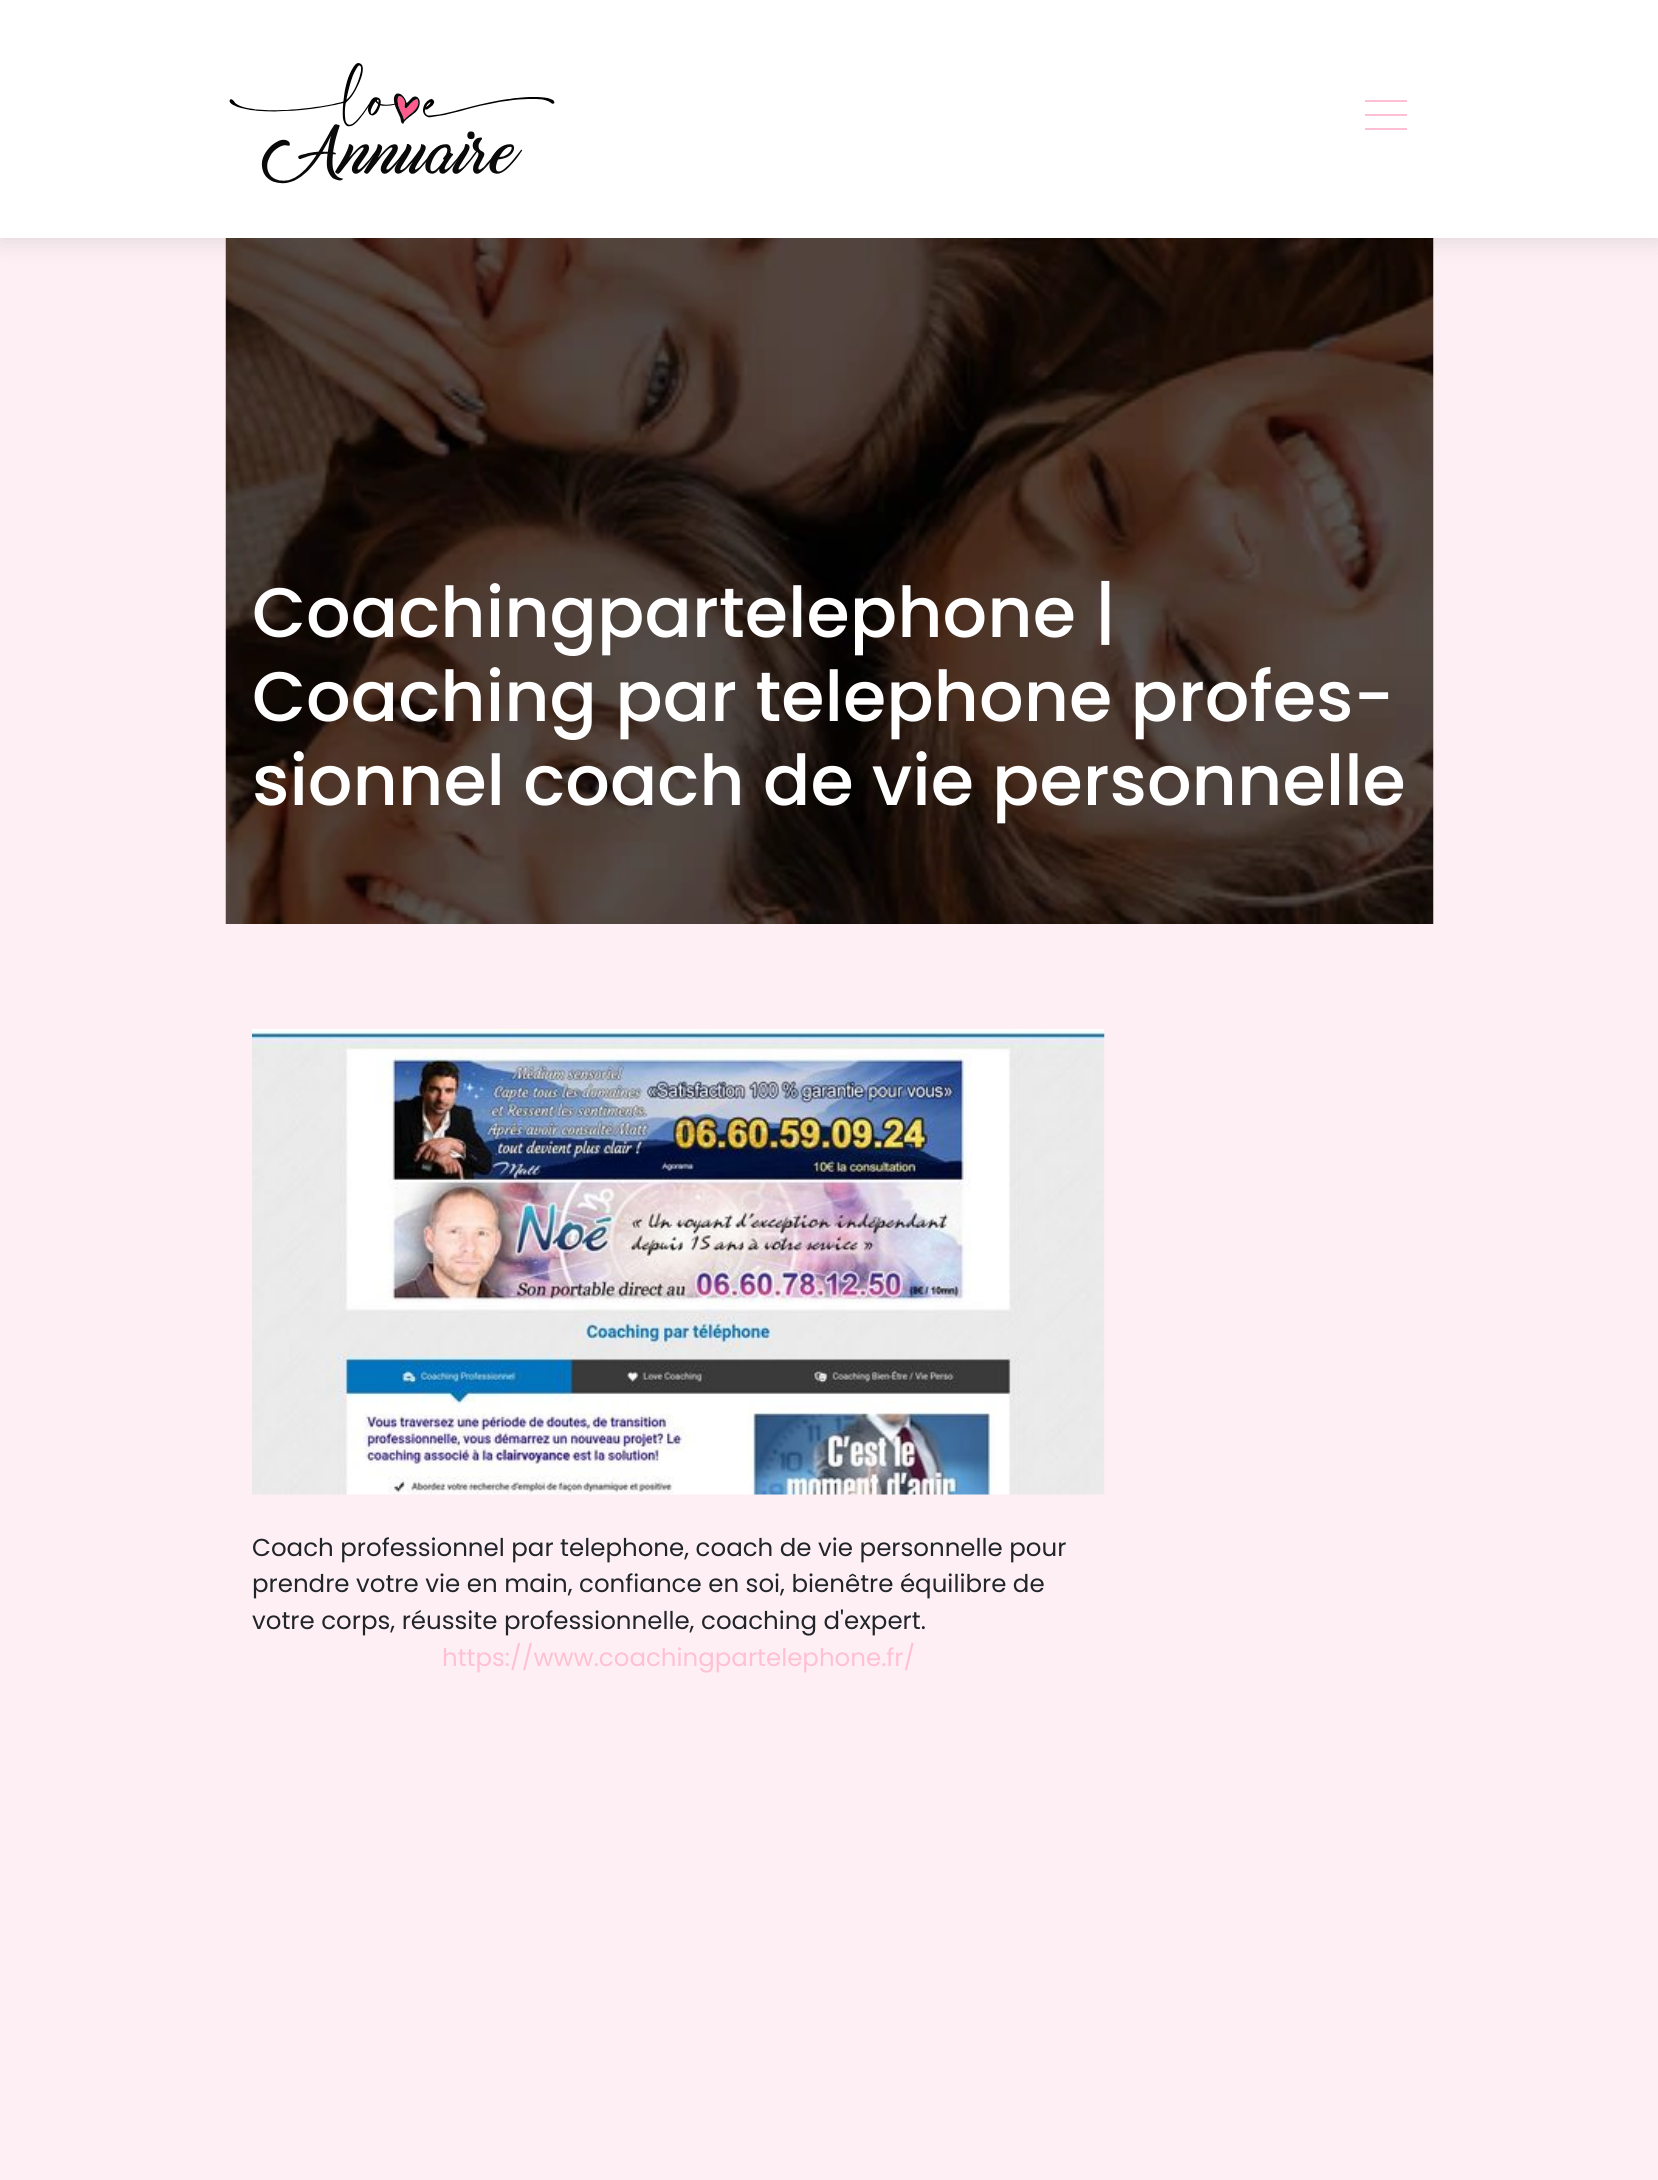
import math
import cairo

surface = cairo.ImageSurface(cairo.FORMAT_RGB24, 1658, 2180)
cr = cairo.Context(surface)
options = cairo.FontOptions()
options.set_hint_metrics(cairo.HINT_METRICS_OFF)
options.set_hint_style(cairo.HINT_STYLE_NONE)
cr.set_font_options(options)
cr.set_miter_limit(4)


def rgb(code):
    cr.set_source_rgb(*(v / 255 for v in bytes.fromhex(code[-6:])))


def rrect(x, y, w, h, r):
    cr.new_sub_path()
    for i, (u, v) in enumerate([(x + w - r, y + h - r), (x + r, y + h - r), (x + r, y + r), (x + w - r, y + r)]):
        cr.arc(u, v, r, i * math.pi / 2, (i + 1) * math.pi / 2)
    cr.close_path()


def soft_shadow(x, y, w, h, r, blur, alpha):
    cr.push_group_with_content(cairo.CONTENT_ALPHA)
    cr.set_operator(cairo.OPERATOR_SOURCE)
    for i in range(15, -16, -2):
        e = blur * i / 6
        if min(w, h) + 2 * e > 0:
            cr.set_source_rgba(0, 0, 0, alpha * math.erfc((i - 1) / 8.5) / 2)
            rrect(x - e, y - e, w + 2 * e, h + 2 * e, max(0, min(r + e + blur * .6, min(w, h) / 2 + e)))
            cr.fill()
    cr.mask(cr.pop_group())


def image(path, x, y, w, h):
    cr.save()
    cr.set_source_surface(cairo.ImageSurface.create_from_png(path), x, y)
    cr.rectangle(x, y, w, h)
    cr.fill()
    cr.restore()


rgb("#fdeff4")
cr.paint()
rgb("#000000")
soft_shadow(0, 4, 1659, 238, 0, 11.5, 0.1)
rgb("#ffffff")
cr.rectangle(0, 0, 1658, 238)
cr.fill()
image("img/1.png", 229, 63, 326, 121)
for x, y, w, h, color in [
    (1365, 100, 42, 2, "#ffc0d3"),
    (1365, 114, 42, 2, "#ffc0d3"),
    (1365, 128, 42, 2, "#ffc0d3"),
]:
    rgb(color)
    cr.rectangle(x, y, w, h)
    cr.fill()
image("img/2.png", 225, 238, 1209, 686)
image("img/3.png", 252, 1029, 853, 466)
cr.select_font_face("Poppins Medium")
cr.set_font_size(70)
rgb("#ffffff")
for x, y, s in [
    (252, 637, "Coachingpartelephone |"),
    (252, 721, "Coaching par telephone profes-"),
    (252, 805, "sionnel coach de vie personnelle"),
]:
    cr.move_to(x, y)
    cr.show_text(s)
cr.select_font_face("Poppins")
cr.set_font_size(24.5)
rgb("#212529")
for x, y, s in [
    (252, 1556, "Coach professionnel par telephone, coach de vie personnelle pour"),
    (252, 1592, "prendre votre vie en main, confiance en soi, bienêtre équilibre de"),
    (252, 1629, "votre corps, réussite professionnelle, coaching d'expert."),
]:
    cr.move_to(x, y)
    cr.show_text(s)
rgb("#ffc0d3")
cr.move_to(442, 1666)
cr.show_text("https://www.coachingpartelephone.fr/")
surface.write_to_png("page.png")
